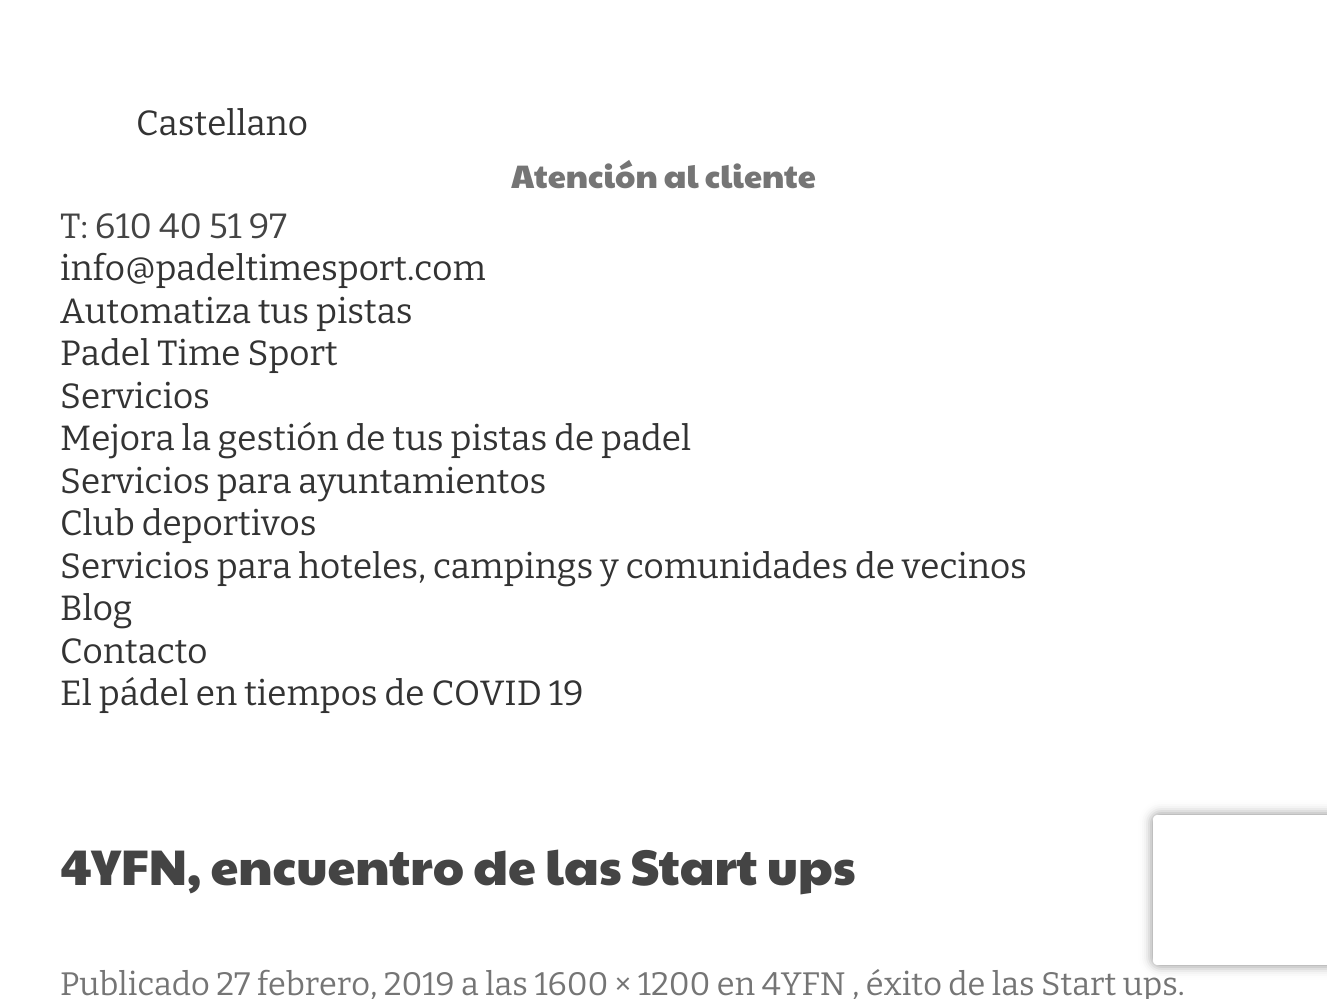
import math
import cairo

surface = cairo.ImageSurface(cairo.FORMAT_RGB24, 1327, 999)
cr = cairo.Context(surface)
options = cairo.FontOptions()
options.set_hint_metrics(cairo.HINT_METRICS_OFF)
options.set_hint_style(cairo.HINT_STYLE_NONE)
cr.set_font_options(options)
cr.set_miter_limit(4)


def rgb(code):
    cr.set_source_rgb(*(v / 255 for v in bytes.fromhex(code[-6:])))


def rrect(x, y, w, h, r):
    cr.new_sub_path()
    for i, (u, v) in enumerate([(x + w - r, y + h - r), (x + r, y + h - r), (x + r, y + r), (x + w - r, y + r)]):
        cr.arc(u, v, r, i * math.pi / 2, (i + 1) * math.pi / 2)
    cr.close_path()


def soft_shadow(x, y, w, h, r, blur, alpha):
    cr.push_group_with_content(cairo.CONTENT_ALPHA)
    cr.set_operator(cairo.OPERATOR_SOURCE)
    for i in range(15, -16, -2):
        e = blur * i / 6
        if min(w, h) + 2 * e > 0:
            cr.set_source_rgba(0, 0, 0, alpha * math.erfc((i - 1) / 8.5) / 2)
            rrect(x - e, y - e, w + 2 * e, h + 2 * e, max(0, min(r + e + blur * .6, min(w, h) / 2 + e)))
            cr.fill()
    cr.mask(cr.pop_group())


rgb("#ffffff")
cr.paint()
cr.save()
cr.set_fill_rule(cairo.FILL_RULE_EVEN_ODD)
cr.new_path()
cr.move_to(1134, 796)
cr.line_to(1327, 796)
cr.line_to(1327, 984)
cr.line_to(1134, 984)
cr.close_path()
cr.move_to(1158, 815)
cr.line_to(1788, 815)
cr.curve_to(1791, 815, 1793, 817, 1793, 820)
cr.line_to(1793, 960)
cr.curve_to(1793, 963, 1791, 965, 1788, 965)
cr.line_to(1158, 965)
cr.curve_to(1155, 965, 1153, 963, 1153, 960)
cr.line_to(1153, 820)
cr.curve_to(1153, 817, 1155, 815, 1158, 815)
cr.close_path()
cr.clip()
rgb("#808080")
soft_shadow(1153, 815, 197, 150, 5, 6, 1)
cr.restore()
cr.select_font_face("Bitter")
cr.set_font_size(35)
rgb("#333333")
cr.move_to(136, 135)
cr.show_text("Castellano")
cr.select_font_face("Paytone One")
cr.set_font_size(32.5)
rgb("#757575")
cr.move_to(511, 188)
cr.show_text("Atención al cliente")
cr.select_font_face("Bitter")
cr.set_font_size(35)
rgb("#444444")
cr.move_to(60, 238)
cr.show_text("T: 610 40 51 97")
rgb("#333333")
for x, y, s in [
    (60, 280, "info@padeltimesport.com"),
    (60, 323, "Automatiza tus pistas"),
    (60, 365, "Padel Time Sport"),
    (60, 408, "Servicios"),
    (60, 450, "Mejora la gestión de tus pistas de padel"),
    (60, 493, "Servicios para ayuntamientos"),
    (60, 535, "Club deportivos"),
    (60, 578, "Servicios para hoteles, campings y comunidades de vecinos"),
    (60, 620, "Blog"),
    (60, 663, "Contacto"),
    (60, 705, "El pádel en tiempos de COVID 19"),
]:
    cr.move_to(x, y)
    cr.show_text(s)
cr.select_font_face("Paytone One")
cr.set_font_size(50)
rgb("#444444")
cr.move_to(60, 885)
cr.show_text("4YFN, encuentro de las Start ups")
cr.select_font_face("Bitter")
cr.set_font_size(32.5)
rgb("#757575")
cr.move_to(60, 995)
cr.show_text("Publicado 27 febrero, 2019 a las 1600 × 1200 en 4YFN , éxito de las Start ups.")
surface.write_to_png("page.png")
